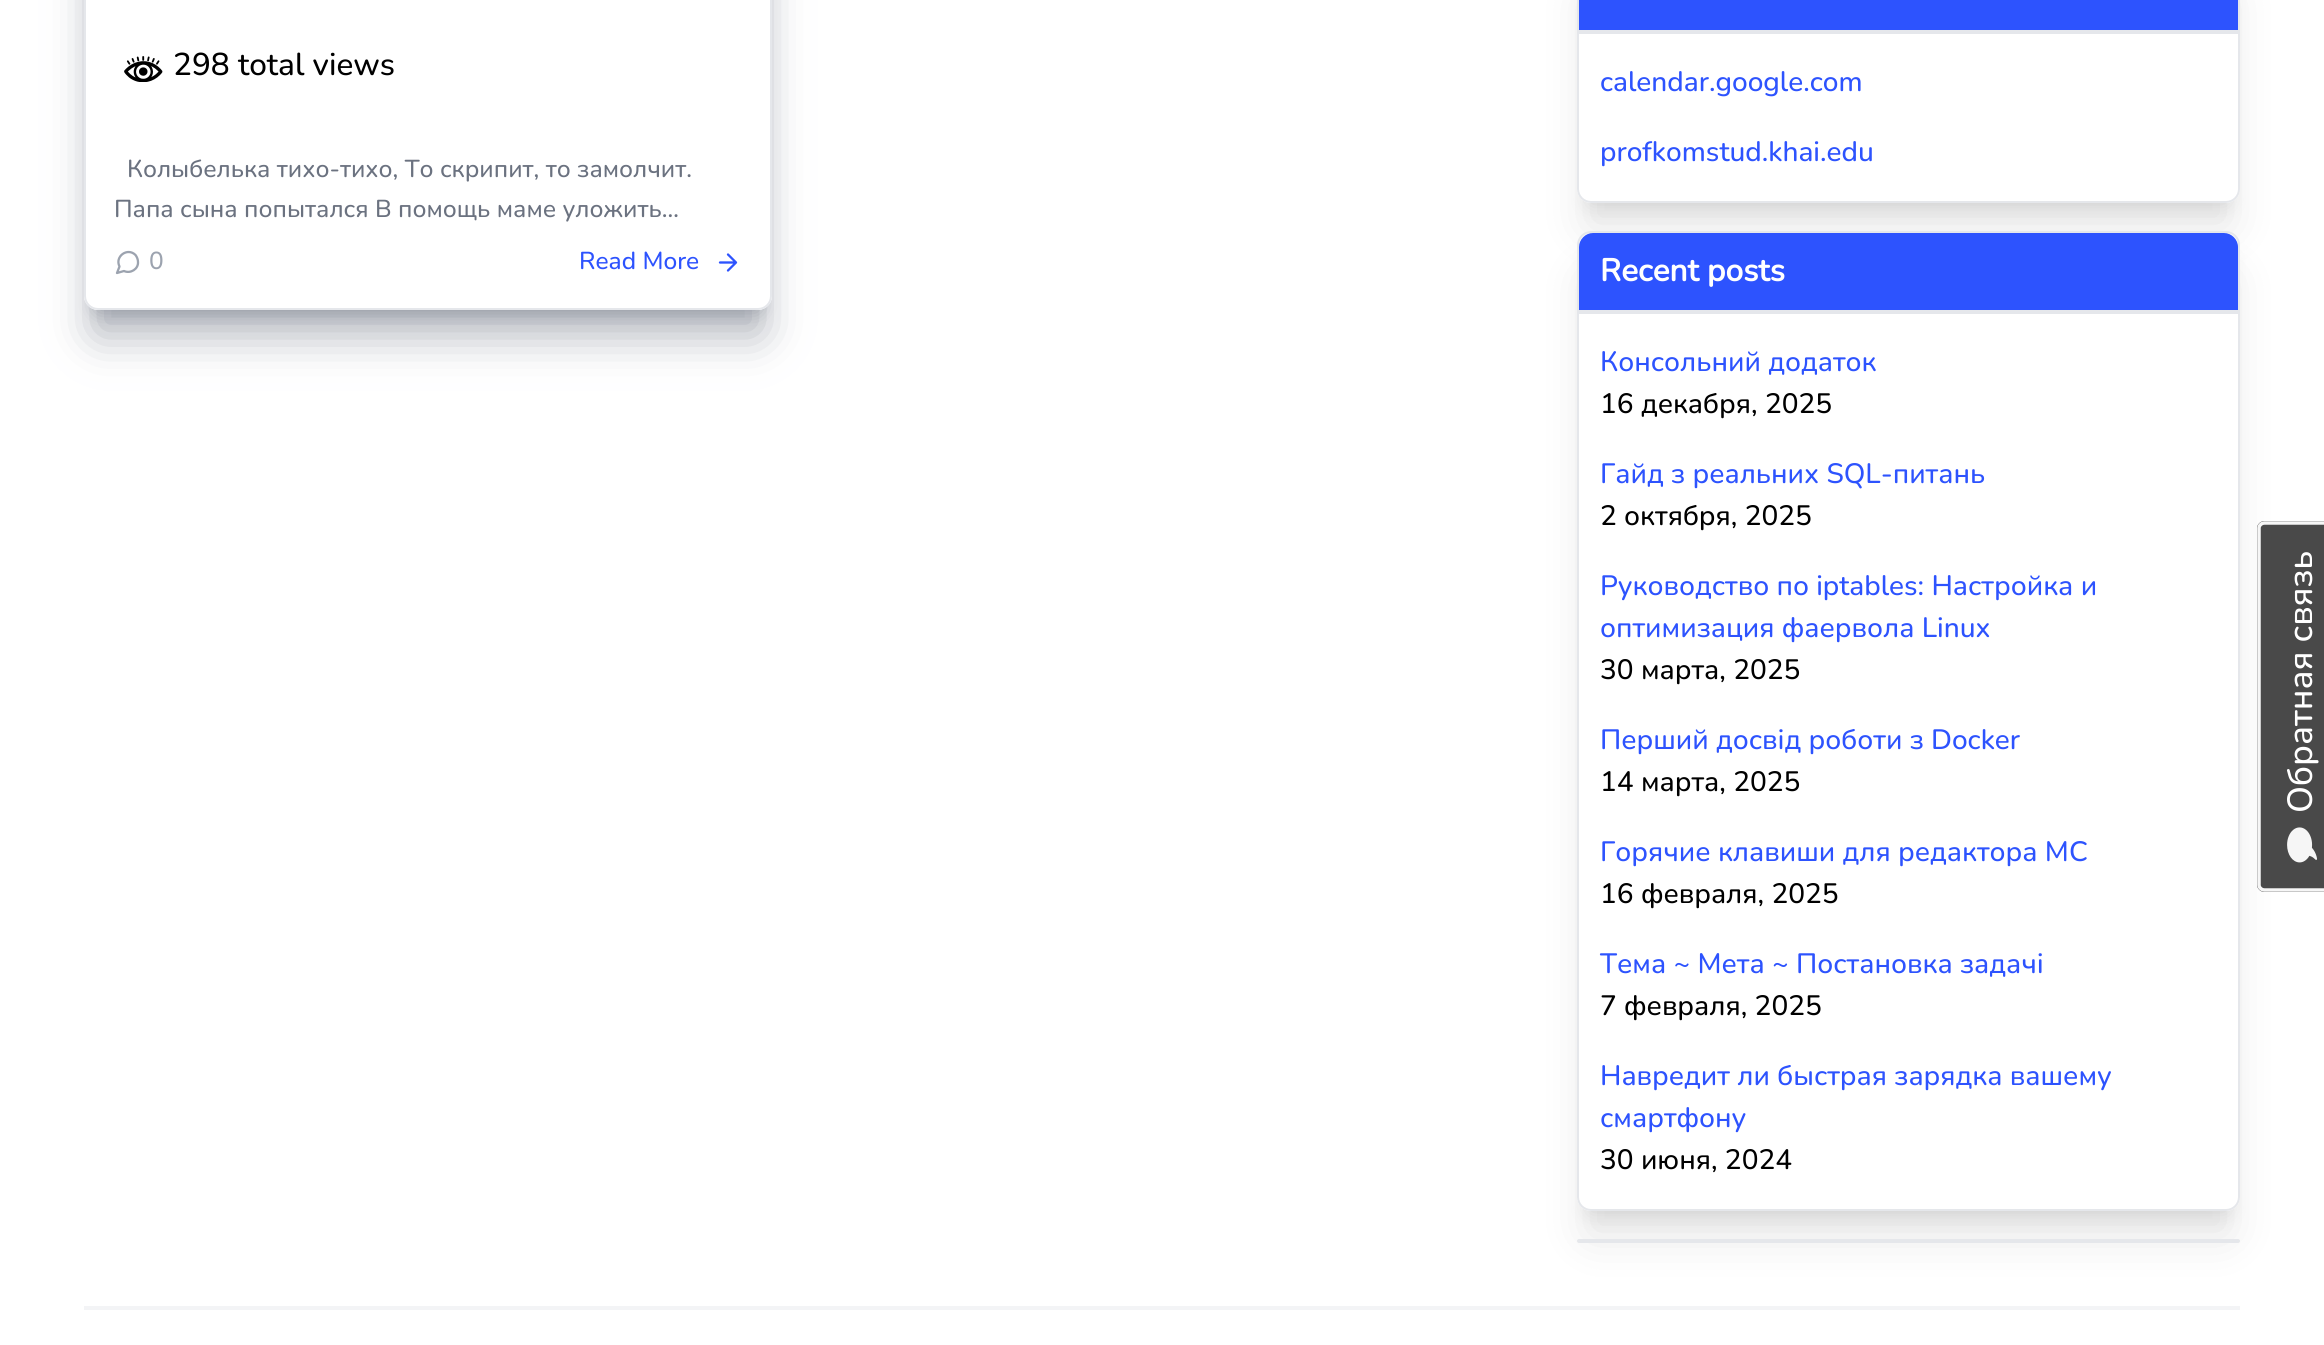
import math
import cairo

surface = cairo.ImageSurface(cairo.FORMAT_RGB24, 2324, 1345)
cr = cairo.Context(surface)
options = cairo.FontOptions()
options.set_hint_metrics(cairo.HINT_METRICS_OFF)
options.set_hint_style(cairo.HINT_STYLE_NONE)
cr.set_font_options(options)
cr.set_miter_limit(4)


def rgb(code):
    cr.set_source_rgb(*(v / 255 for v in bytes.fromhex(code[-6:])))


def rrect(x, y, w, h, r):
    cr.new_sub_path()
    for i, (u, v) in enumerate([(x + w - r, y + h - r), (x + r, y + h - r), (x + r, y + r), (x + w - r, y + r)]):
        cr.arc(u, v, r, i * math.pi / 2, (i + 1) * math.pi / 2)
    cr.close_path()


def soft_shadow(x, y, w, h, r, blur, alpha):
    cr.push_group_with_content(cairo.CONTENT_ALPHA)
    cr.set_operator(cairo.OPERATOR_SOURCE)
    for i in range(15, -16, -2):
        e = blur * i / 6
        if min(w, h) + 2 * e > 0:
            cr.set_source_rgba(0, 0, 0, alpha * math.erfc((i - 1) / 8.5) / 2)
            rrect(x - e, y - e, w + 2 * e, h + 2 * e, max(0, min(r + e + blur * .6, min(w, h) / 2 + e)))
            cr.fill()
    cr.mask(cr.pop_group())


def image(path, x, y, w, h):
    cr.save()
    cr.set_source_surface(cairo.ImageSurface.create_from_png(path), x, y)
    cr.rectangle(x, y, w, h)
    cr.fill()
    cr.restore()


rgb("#ffffff")
cr.paint()
cr.save()
cr.set_fill_rule(cairo.FILL_RULE_EVEN_ODD)
cr.new_path()
cr.move_to(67, 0)
cr.line_to(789, 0)
cr.line_to(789, 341)
cr.line_to(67, 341)
cr.close_path()
cr.move_to(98, -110)
cr.line_to(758, -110)
cr.curve_to(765.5, -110, 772, -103.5, 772, -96)
cr.line_to(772, 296)
cr.curve_to(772, 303.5, 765.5, 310, 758, 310)
cr.line_to(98, 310)
cr.curve_to(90.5, 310, 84, 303.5, 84, 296)
cr.line_to(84, -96)
cr.curve_to(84, -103.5, 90.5, -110, 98, -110)
cr.close_path()
cr.clip()
rgb("#6b7280")
soft_shadow(95, -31, 666, 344, 4, 9, 0.5)
cr.restore()
cr.save()
cr.set_fill_rule(cairo.FILL_RULE_EVEN_ODD)
cr.new_path()
cr.move_to(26, 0)
cr.line_to(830, 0)
cr.line_to(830, 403)
cr.line_to(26, 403)
cr.close_path()
cr.move_to(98, -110)
cr.line_to(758, -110)
cr.curve_to(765.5, -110, 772, -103.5, 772, -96)
cr.line_to(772, 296)
cr.curve_to(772, 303.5, 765.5, 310, 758, 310)
cr.line_to(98, 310)
cr.curve_to(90.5, 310, 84, 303.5, 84, 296)
cr.line_to(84, -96)
cr.curve_to(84, -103.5, 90.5, -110, 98, -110)
cr.close_path()
cr.clip()
rgb("#6b7280")
soft_shadow(93, -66, 670, 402, 5, 22, 0.5)
cr.restore()
rrect(85, -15, 686, 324, 13)
rgb("#e5e7eb")
cr.stroke()
image("img/1.png", 124, 56, 39, 26)
cr.new_path()
cr.move_to(138, 262)
cr.curve_to(138.5, 269, 130.5, 274, 124, 271)
cr.line_to(117, 273)
cr.line_to(119.5, 266.5)
cr.curve_to(114.5, 256.5, 127.5, 247, 135.5, 255)
cr.curve_to(137, 257, 138, 259.5, 138, 262)
cr.close_path()
rgb("#9ca3af")
cr.set_line_width(2.3)
cr.set_line_cap(cairo.LINE_CAP_ROUND)
cr.set_line_join(cairo.LINE_JOIN_ROUND)
cr.stroke()
cr.new_path()
cr.move_to(720, 262.5)
cr.line_to(736, 262.5)
cr.move_to(728, 254.5)
cr.line_to(736, 262.5)
cr.line_to(728, 270.5)
rgb("#2d53fe")
cr.stroke()
cr.save()
cr.set_fill_rule(cairo.FILL_RULE_EVEN_ODD)
cr.new_path()
cr.move_to(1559, 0)
cr.line_to(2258, 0)
cr.line_to(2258, 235)
cr.line_to(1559, 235)
cr.close_path()
cr.move_to(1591, -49)
cr.line_to(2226, -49)
cr.curve_to(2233.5, -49, 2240, -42.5, 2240, -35)
cr.line_to(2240, 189)
cr.curve_to(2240, 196.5, 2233.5, 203, 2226, 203)
cr.line_to(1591, 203)
cr.curve_to(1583.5, 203, 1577, 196.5, 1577, 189)
cr.line_to(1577, -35)
cr.curve_to(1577, -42.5, 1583.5, -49, 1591, -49)
cr.close_path()
cr.clip()
rgb("#000000")
soft_shadow(1587, -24, 643, 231, 4, 9, 0.1)
cr.restore()
cr.save()
cr.set_fill_rule(cairo.FILL_RULE_EVEN_ODD)
cr.new_path()
cr.move_to(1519, 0)
cr.line_to(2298, 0)
cr.line_to(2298, 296)
cr.line_to(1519, 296)
cr.close_path()
cr.move_to(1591, -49)
cr.line_to(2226, -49)
cr.curve_to(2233.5, -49, 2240, -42.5, 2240, -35)
cr.line_to(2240, 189)
cr.curve_to(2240, 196.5, 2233.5, 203, 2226, 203)
cr.line_to(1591, 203)
cr.curve_to(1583.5, 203, 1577, 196.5, 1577, 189)
cr.line_to(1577, -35)
cr.curve_to(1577, -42.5, 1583.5, -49, 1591, -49)
cr.close_path()
cr.clip()
rgb("#000000")
soft_shadow(1586, -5, 645, 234, 5, 22, 0.1)
cr.restore()
rrect(1578, -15, 661, 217, 13)
rgb("#e5e7eb")
cr.set_line_width(2)
cr.set_line_cap(cairo.LINE_CAP_BUTT)
cr.set_line_join(cairo.LINE_JOIN_MITER)
cr.stroke()
rgb("#2d53fe")
cr.rectangle(1579, 0, 659, 30)
cr.fill()
rgb("#e5e7eb")
cr.rectangle(1579, 30, 659, 4)
cr.fill()
cr.save()
cr.set_fill_rule(cairo.FILL_RULE_EVEN_ODD)
cr.new_path()
cr.move_to(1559, 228)
cr.line_to(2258, 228)
cr.line_to(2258, 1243)
cr.line_to(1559, 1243)
cr.close_path()
cr.move_to(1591, 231)
cr.line_to(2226, 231)
cr.curve_to(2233.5, 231, 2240, 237.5, 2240, 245)
cr.line_to(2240, 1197)
cr.curve_to(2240, 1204.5, 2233.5, 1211, 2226, 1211)
cr.line_to(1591, 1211)
cr.curve_to(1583.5, 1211, 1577, 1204.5, 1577, 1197)
cr.line_to(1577, 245)
cr.curve_to(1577, 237.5, 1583.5, 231, 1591, 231)
cr.close_path()
cr.clip()
rgb("#000000")
soft_shadow(1587, 256, 643, 959, 4, 9, 0.1)
cr.restore()
cr.save()
cr.set_fill_rule(cairo.FILL_RULE_EVEN_ODD)
cr.new_path()
cr.move_to(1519, 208)
cr.line_to(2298, 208)
cr.line_to(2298, 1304)
cr.line_to(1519, 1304)
cr.close_path()
cr.move_to(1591, 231)
cr.line_to(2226, 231)
cr.curve_to(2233.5, 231, 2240, 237.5, 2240, 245)
cr.line_to(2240, 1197)
cr.curve_to(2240, 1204.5, 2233.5, 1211, 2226, 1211)
cr.line_to(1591, 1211)
cr.curve_to(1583.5, 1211, 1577, 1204.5, 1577, 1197)
cr.line_to(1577, 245)
cr.curve_to(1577, 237.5, 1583.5, 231, 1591, 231)
cr.close_path()
cr.clip()
rgb("#000000")
soft_shadow(1586, 275, 645, 962, 5, 22, 0.1)
cr.restore()
rrect(1578, 232, 661, 978, 13)
cr.stroke()
rgb("#2d53fe")
cr.new_path()
cr.move_to(1593, 233)
cr.line_to(2224, 233)
cr.curve_to(2231.5, 233, 2238, 239.5, 2238, 247)
cr.line_to(2238, 310)
cr.line_to(1579, 310)
cr.line_to(1579, 247)
cr.curve_to(1579, 239.5, 1585.5, 233, 1593, 233)
cr.close_path()
cr.fill()
rgb("#e5e7eb")
cr.rectangle(1579, 310, 659, 4)
cr.fill()
rrect(1577, 1239, 663, 4, 2)
cr.fill()
rgb("#f3f4f6")
cr.rectangle(84, 1306, 2156, 4)
cr.fill()
cr.set_source_rgba(0.251, 0.251, 0.251, 0.95)
cr.new_path()
cr.move_to(2257, 885)
cr.line_to(2257, 528)
cr.curve_to(2257, 524, 2261, 521, 2264, 521)
cr.line_to(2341, 521)
cr.curve_to(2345, 521, 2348, 524, 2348, 528)
cr.line_to(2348, 885)
cr.curve_to(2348, 889, 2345, 892, 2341, 892)
cr.line_to(2264, 892)
cr.curve_to(2261, 892, 2257, 889, 2257, 885)
cr.close_path()
cr.fill()
cr.new_path()
cr.move_to(2259, 885)
cr.line_to(2259, 528)
cr.curve_to(2259, 525.5, 2261.5, 523, 2264.5, 523)
cr.line_to(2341.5, 523)
cr.curve_to(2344.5, 523, 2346.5, 525.5, 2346.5, 528)
cr.line_to(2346.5, 885)
cr.curve_to(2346.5, 887.5, 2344.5, 890, 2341.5, 890)
cr.line_to(2264.5, 890)
cr.curve_to(2261.5, 890, 2259, 887.5, 2259, 885)
cr.close_path()
cr.set_source_rgba(1, 1, 1, 0.95)
cr.set_line_width(3.5)
cr.stroke()
image("img/2.png", 2287, 827, 30, 36)
cr.select_font_face("Nunito ExtraLight")
cr.set_font_size(31.5)
rgb("#000000")
cr.move_to(173, 75)
cr.show_text("298 total views")
cr.set_font_size(24.5)
rgb("#6b7280")
cr.move_to(127, 177)
cr.show_text("Колыбелька тихо-тихо, То скрипит, то замолчит.")
cr.move_to(114, 217)
cr.show_text("Папа сына попытался В помощь маме уложить…")
rgb("#9ca3af")
cr.move_to(149, 269)
cr.show_text("0")
rgb("#2d53fe")
cr.move_to(579, 269)
cr.show_text("Read More")
cr.set_font_size(28)
cr.move_to(1600, 91)
cr.show_text("calendar.google.com")
cr.move_to(1600, 161)
cr.show_text("profkomstud.khai.edu")
cr.select_font_face("Nunito", cairo.FONT_SLANT_NORMAL, cairo.FONT_WEIGHT_BOLD)
cr.set_font_size(31.5)
rgb("#ffffff")
cr.move_to(1600, 281)
cr.show_text("Recent posts")
cr.select_font_face("Nunito ExtraLight")
cr.set_font_size(28)
rgb("#2d53fe")
cr.move_to(1600, 371)
cr.show_text("Консольний додаток")
rgb("#000000")
cr.move_to(1600, 413)
cr.show_text("16 декабря, 2025")
rgb("#2d53fe")
cr.move_to(1600, 483)
cr.show_text("Гайд з реальних SQL-питань")
rgb("#000000")
cr.move_to(1600, 525)
cr.show_text("2 октября, 2025")
rgb("#2d53fe")
cr.move_to(1600, 595)
cr.show_text("Руководство по iptables: Настройка и")
cr.move_to(1600, 637)
cr.show_text("оптимизация фаервола Linux")
rgb("#000000")
cr.move_to(1600, 679)
cr.show_text("30 марта, 2025")
rgb("#2d53fe")
cr.move_to(1600, 749)
cr.show_text("Перший досвід роботи з Docker")
rgb("#000000")
cr.move_to(1600, 791)
cr.show_text("14 марта, 2025")
rgb("#2d53fe")
cr.move_to(1600, 861)
cr.show_text("Горячие клавиши для редактора MC")
rgb("#000000")
cr.move_to(1600, 903)
cr.show_text("16 февраля, 2025")
rgb("#2d53fe")
cr.move_to(1600, 973)
cr.show_text("Тема ~ Мета ~ Постановка задачі")
rgb("#000000")
cr.move_to(1600, 1015)
cr.show_text("7 февраля, 2025")
rgb("#2d53fe")
cr.move_to(1600, 1085)
cr.show_text("Навредит ли быстрая зарядка вашему")
cr.move_to(1600, 1127)
cr.show_text("смартфону")
rgb("#000000")
cr.move_to(1600, 1169)
cr.show_text("30 июня, 2024")
cr.set_font_size(35)
rgb("#ffffff")
cr.save()
cr.translate(2312, 813)
cr.rotate(-90 * math.pi / 180)
cr.move_to(0, 0)
cr.show_text("Обратная связь")
cr.restore()
surface.write_to_png("page.png")
